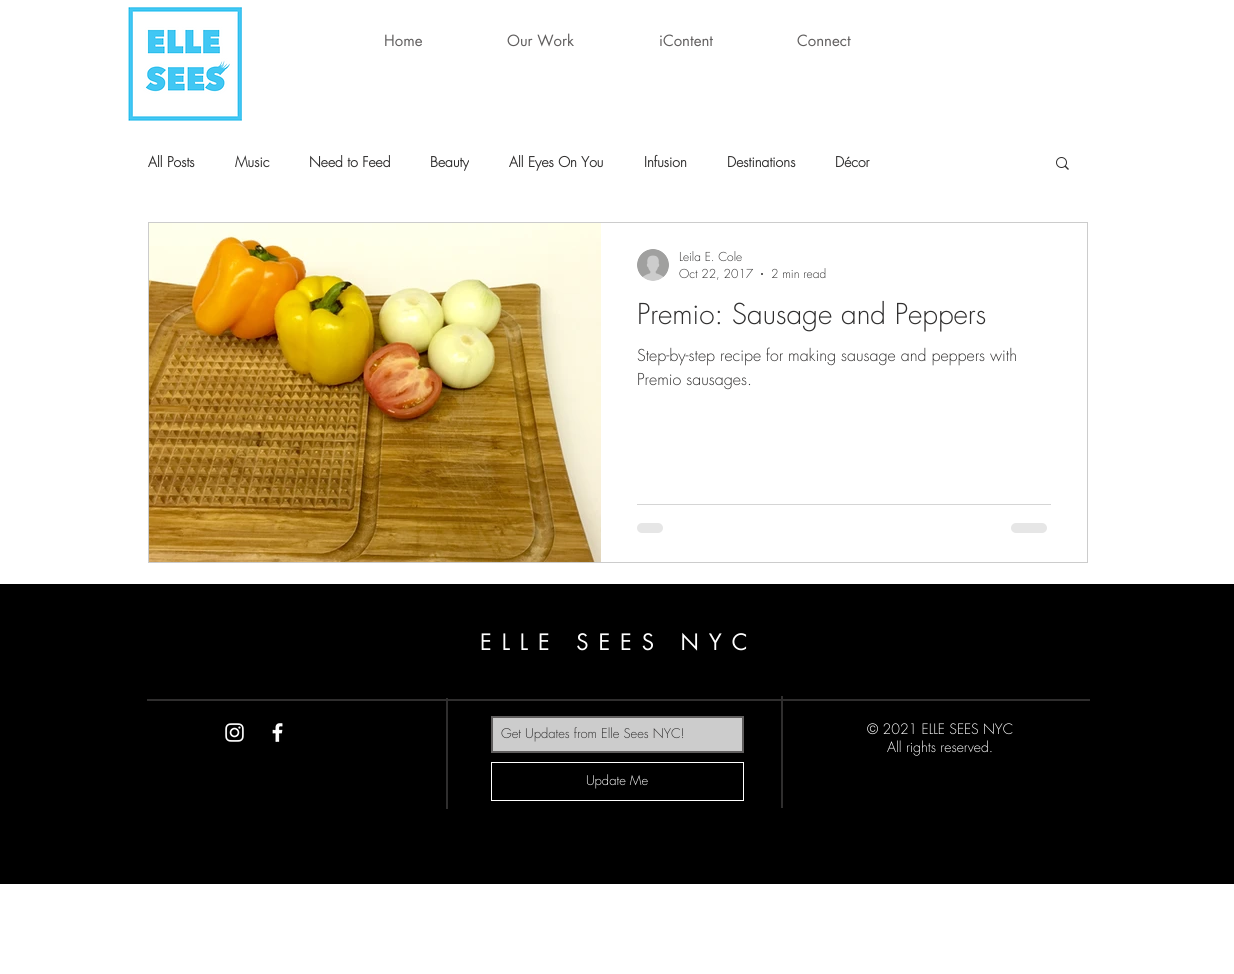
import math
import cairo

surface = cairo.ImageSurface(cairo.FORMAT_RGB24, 1234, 974)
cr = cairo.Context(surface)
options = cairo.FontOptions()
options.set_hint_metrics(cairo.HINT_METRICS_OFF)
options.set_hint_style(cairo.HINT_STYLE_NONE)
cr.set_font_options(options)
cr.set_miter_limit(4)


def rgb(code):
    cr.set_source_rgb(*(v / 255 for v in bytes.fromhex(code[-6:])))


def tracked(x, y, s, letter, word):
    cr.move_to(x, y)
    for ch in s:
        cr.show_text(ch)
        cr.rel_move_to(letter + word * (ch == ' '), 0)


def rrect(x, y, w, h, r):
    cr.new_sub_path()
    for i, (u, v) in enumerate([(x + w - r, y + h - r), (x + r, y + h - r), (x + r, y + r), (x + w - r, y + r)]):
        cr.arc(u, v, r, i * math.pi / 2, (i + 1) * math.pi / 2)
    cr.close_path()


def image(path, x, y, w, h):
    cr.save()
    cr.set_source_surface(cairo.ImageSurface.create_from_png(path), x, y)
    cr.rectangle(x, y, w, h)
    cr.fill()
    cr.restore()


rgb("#ffffff")
cr.paint()
image("img/1.png", 128, 7, 114, 114)
image("img/2.png", 1056, 157, 13, 13)
cr.rectangle(148.5, 222.5, 939, 340)
rgb("#cccccc")
cr.set_line_width(1)
cr.stroke()
image("img/3.png", 149, 223, 452, 339)
image("img/4.png", 637, 249, 32, 32)
rgb("#2f2e2e")
cr.arc(762, 274, 1, 0, 2 * math.pi)
cr.fill()
rgb("#d5d5d5")
cr.rectangle(637, 504, 414, 1)
cr.fill()
rgb("#e6e6e6")
rrect(637, 523, 26, 10, 5)
cr.fill()
rrect(1011, 523, 36, 10, 5)
cr.fill()
for x, y, w, h, color in [
    (0, 584, 1234, 300, "#000000"),
    (147, 699, 943, 2, "#2f2e2e"),
    (446, 698, 2, 111, "#2f2e2e"),
    (781, 696, 2, 112, "#2f2e2e"),
]:
    rgb(color)
    cr.rectangle(x, y, w, h)
    cr.fill()
image("img/5.png", 225, 723, 19, 19)
image("img/6.png", 272, 723, 11, 19)
rgb("#cccccc")
cr.rectangle(492, 717, 251, 35)
cr.fill_preserve()
rgb("#605e5e")
cr.set_line_width(2)
cr.stroke()
cr.rectangle(491.5, 762.5, 252, 38)
rgb("#ffffff")
cr.set_line_width(1)
cr.stroke()
cr.select_font_face("futura")
cr.set_font_size(15)
rgb("#605e5e")
for x, y, s in [
    (384, 46, "Home"),
    (507, 46, "Our Work"),
    (659, 46, "iContent"),
    (797, 46, "Connect"),
]:
    cr.move_to(x, y)
    cr.show_text(s)
cr.select_font_face("futura", cairo.FONT_SLANT_NORMAL, cairo.FONT_WEIGHT_BOLD)
cr.set_font_size(14)
rgb("#2f2e2e")
for x, y, s in [
    (148, 167, "All Posts"),
    (235, 167, "Music"),
    (309, 167, "Need to Feed"),
    (430, 167, "Beauty"),
    (509, 167, "All Eyes On You"),
    (644, 167, "Infusion"),
    (727, 167, "Destinations"),
    (835, 167, "Décor"),
]:
    cr.move_to(x, y)
    cr.show_text(s)
cr.select_font_face("futura Light")
cr.set_font_size(12)
for x, y, s in [
    (679, 261, "Leila E. Cole"),
    (679, 278, "Oct 22, 2017"),
    (771, 278, "2 min read"),
]:
    cr.move_to(x, y)
    cr.show_text(s)
cr.set_font_size(28)
cr.move_to(637, 324)
cr.show_text("Premio: Sausage and Peppers")
cr.set_font_size(16)
cr.move_to(637, 361)
cr.show_text("Step-by-step recipe for making sausage and peppers with")
cr.move_to(637, 385)
cr.show_text("Premio sausages.")
cr.select_font_face("futura")
cr.set_font_size(22)
rgb("#ffffff")
tracked(480, 650, "ELLE SEES NYC", 9.9, 0)
cr.select_font_face("futura Light")
cr.set_font_size(13)
rgb("#2f2e2e")
cr.move_to(501, 738)
cr.show_text("Get Updates from Elle Sees NYC!")
rgb("#ffffff")
cr.move_to(586, 785)
cr.show_text("Update Me")
cr.set_font_size(14)
cr.move_to(867, 734)
cr.show_text("© 2021 ELLE SEES NYC")
cr.move_to(887, 752)
cr.show_text("All rights reserved.")
surface.write_to_png("page.png")
